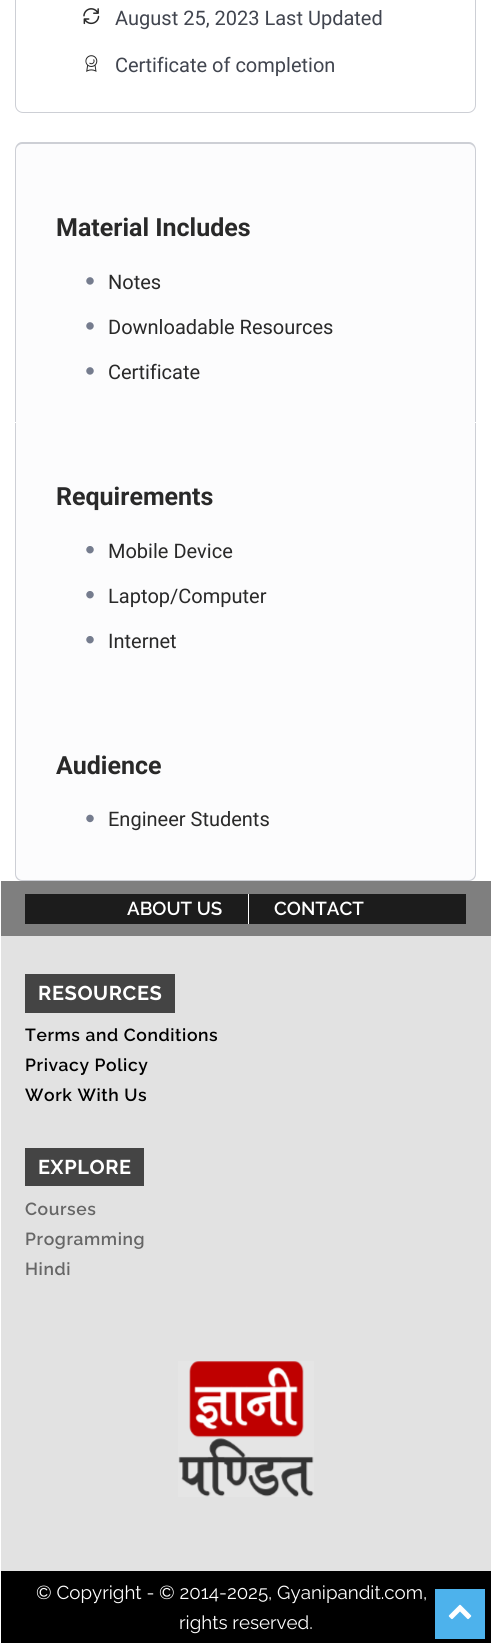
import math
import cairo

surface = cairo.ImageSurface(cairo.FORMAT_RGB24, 491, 1643)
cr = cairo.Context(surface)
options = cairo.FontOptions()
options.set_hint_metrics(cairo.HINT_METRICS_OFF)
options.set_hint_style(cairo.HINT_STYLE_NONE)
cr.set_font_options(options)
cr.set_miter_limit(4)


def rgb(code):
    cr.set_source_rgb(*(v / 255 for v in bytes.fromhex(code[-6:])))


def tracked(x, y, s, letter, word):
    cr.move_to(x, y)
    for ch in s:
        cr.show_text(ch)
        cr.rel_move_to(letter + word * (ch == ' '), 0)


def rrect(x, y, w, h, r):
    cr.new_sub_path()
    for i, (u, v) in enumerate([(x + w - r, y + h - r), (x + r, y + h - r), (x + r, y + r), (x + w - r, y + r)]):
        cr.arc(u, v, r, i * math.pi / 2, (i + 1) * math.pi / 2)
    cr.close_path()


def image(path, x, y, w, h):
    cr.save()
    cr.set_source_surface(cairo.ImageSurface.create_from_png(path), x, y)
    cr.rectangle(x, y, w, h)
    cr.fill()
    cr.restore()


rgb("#ffffff")
cr.paint()
rrect(15.5, -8.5, 460, 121, 7.5)
rgb("#cdcfd5")
cr.set_line_width(1)
cr.stroke()
image("img/1.png", 83, 8, 17, 17)
image("img/2.png", 85, 55, 13, 17)
rgb("#fcfcfd")
cr.new_path()
cr.move_to(23, 143)
cr.line_to(468, 143)
cr.curve_to(472.5, 143, 476, 146.5, 476, 151)
cr.line_to(476, 423)
cr.line_to(15, 423)
cr.line_to(15, 151)
cr.curve_to(15, 146.5, 18.5, 143, 23, 143)
cr.close_path()
cr.fill()
rgb("#cdcfd5")
cr.set_fill_rule(cairo.FILL_RULE_EVEN_ODD)
cr.new_path()
cr.move_to(22, 142)
cr.line_to(469, 142)
cr.curve_to(473, 142, 476, 146, 476, 150)
cr.line_to(476, 422)
cr.line_to(15, 422)
cr.line_to(15, 150)
cr.curve_to(15, 146, 18, 142, 22, 142)
cr.close_path()
cr.move_to(22, 144)
cr.line_to(469, 144)
cr.curve_to(472, 144, 475, 147, 475, 150)
cr.line_to(475, 422)
cr.line_to(16, 422)
cr.line_to(16, 150)
cr.curve_to(16, 147, 19, 144, 22, 144)
cr.close_path()
cr.fill()
image("img/3.png", 86, 277, 8, 8)
image("img/3.png", 86, 322, 8, 8)
image("img/3.png", 86, 367, 8, 8)
for x, y, w, h, color in [
    (16, 423, 459, 268, "#fcfcfd"),
    (475, 423, 1, 268, "#cdcfd5"),
    (15, 423, 1, 268, "#cdcfd5"),
]:
    rgb(color)
    cr.rectangle(x, y, w, h)
    cr.fill()
image("img/4.png", 86, 546, 8, 8)
image("img/4.png", 86, 591, 8, 8)
image("img/4.png", 86, 636, 8, 8)
rgb("#fcfcfd")
cr.new_path()
cr.move_to(15, 691)
cr.line_to(476, 691)
cr.line_to(476, 873)
cr.curve_to(476, 877.5, 472.5, 881, 468, 881)
cr.line_to(23, 881)
cr.curve_to(18.5, 881, 15, 877.5, 15, 873)
cr.close_path()
cr.fill()
rgb("#cdcfd5")
cr.new_path()
cr.move_to(15, 691)
cr.line_to(476, 691)
cr.line_to(476, 874)
cr.curve_to(476, 878, 473, 881, 469, 881)
cr.line_to(22, 881)
cr.curve_to(18, 881, 15, 878, 15, 874)
cr.close_path()
cr.move_to(16, 691)
cr.line_to(475, 691)
cr.line_to(475, 874)
cr.curve_to(475, 877, 472, 880, 469, 880)
cr.line_to(22, 880)
cr.curve_to(19, 880, 16, 877, 16, 874)
cr.close_path()
cr.fill()
image("img/5.png", 86, 814, 8, 9)
for x, y, w, h, color in [
    (1, 881, 490, 55, "#7f7f7f"),
    (25, 894, 441, 30, "#1c1c1c"),
    (248, 894, 1, 30, "#ffffff"),
    (1, 936, 490, 635, "#e2e2e2"),
    (25, 974, 150, 39, "#444444"),
    (25, 1148, 119, 38, "#444444"),
]:
    rgb(color)
    cr.rectangle(x, y, w, h)
    cr.fill()
image("img/6.png", 178, 1361, 136, 136)
rgb("#000000")
cr.rectangle(1, 1571, 490, 72)
cr.fill()
rgb("#4db2ec")
cr.rectangle(435, 1589, 50, 50)
cr.fill()
image("img/7.png", 448, 1604, 24, 16)
cr.select_font_face("Roboto")
cr.set_font_size(20)
rgb("#41454f")
cr.move_to(115, 25)
cr.show_text("August 25, 2023 Last Updated")
cr.move_to(115, 72)
cr.show_text("Certificate of completion")
cr.select_font_face("Roboto", cairo.FONT_SLANT_NORMAL, cairo.FONT_WEIGHT_BOLD)
cr.set_font_size(25)
rgb("#292929")
cr.move_to(56, 236)
cr.show_text("Material Includes")
cr.select_font_face("Roboto")
cr.set_font_size(20)
for x, y, s in [
    (108, 289, "Notes"),
    (108, 334, "Downloadable Resources"),
    (108, 379, "Certificate"),
]:
    cr.move_to(x, y)
    cr.show_text(s)
cr.select_font_face("Roboto", cairo.FONT_SLANT_NORMAL, cairo.FONT_WEIGHT_BOLD)
cr.set_font_size(25)
cr.move_to(56, 505)
cr.show_text("Requirements")
cr.select_font_face("Roboto")
cr.set_font_size(20)
for x, y, s in [
    (108, 558, "Mobile Device"),
    (108, 603, "Laptop/Computer"),
    (108, 648, "Internet"),
]:
    cr.move_to(x, y)
    cr.show_text(s)
cr.select_font_face("Roboto", cairo.FONT_SLANT_NORMAL, cairo.FONT_WEIGHT_BOLD)
cr.set_font_size(25)
cr.move_to(56, 774)
cr.show_text("Audience")
cr.select_font_face("Roboto")
cr.set_font_size(20)
cr.move_to(108, 826)
cr.show_text("Engineer Students")
cr.select_font_face("Raleway SemiBold")
cr.set_font_size(18.75)
rgb("#ffffff")
cr.move_to(127, 915)
cr.show_text("ABOUT US")
cr.move_to(274, 915)
cr.show_text("CONTACT")
cr.select_font_face("Raleway", cairo.FONT_SLANT_NORMAL, cairo.FONT_WEIGHT_BOLD)
cr.set_font_size(20)
tracked(38, 1000, "RESOURCES", 0.6, 0)
cr.select_font_face("Raleway SemiBold")
cr.set_font_size(17.5)
rgb("#000000")
for x, y, s in [
    (25, 1041, "Terms and Conditions"),
    (25, 1071, "Privacy Policy"),
    (25, 1101, "Work With Us"),
]:
    tracked(x, y, s, 0.6, 0)
cr.select_font_face("Raleway", cairo.FONT_SLANT_NORMAL, cairo.FONT_WEIGHT_BOLD)
cr.set_font_size(20)
rgb("#ffffff")
tracked(38, 1174, "EXPLORE", 0.6, 0)
cr.select_font_face("Raleway SemiBold")
cr.set_font_size(17.5)
rgb("#666666")
for x, y, s in [
    (25, 1215, "Courses"),
    (25, 1245, "Programming"),
    (25, 1275, "Hindi"),
]:
    tracked(x, y, s, 0.6, 0)
cr.select_font_face("Raleway")
cr.set_font_size(18.75)
rgb("#ffffff")
cr.move_to(36, 1599)
cr.show_text("© Copyright - © 2014-2025, Gyanipandit.com,")
cr.move_to(179, 1629)
cr.show_text("rights reserved.")
surface.write_to_png("page.png")
